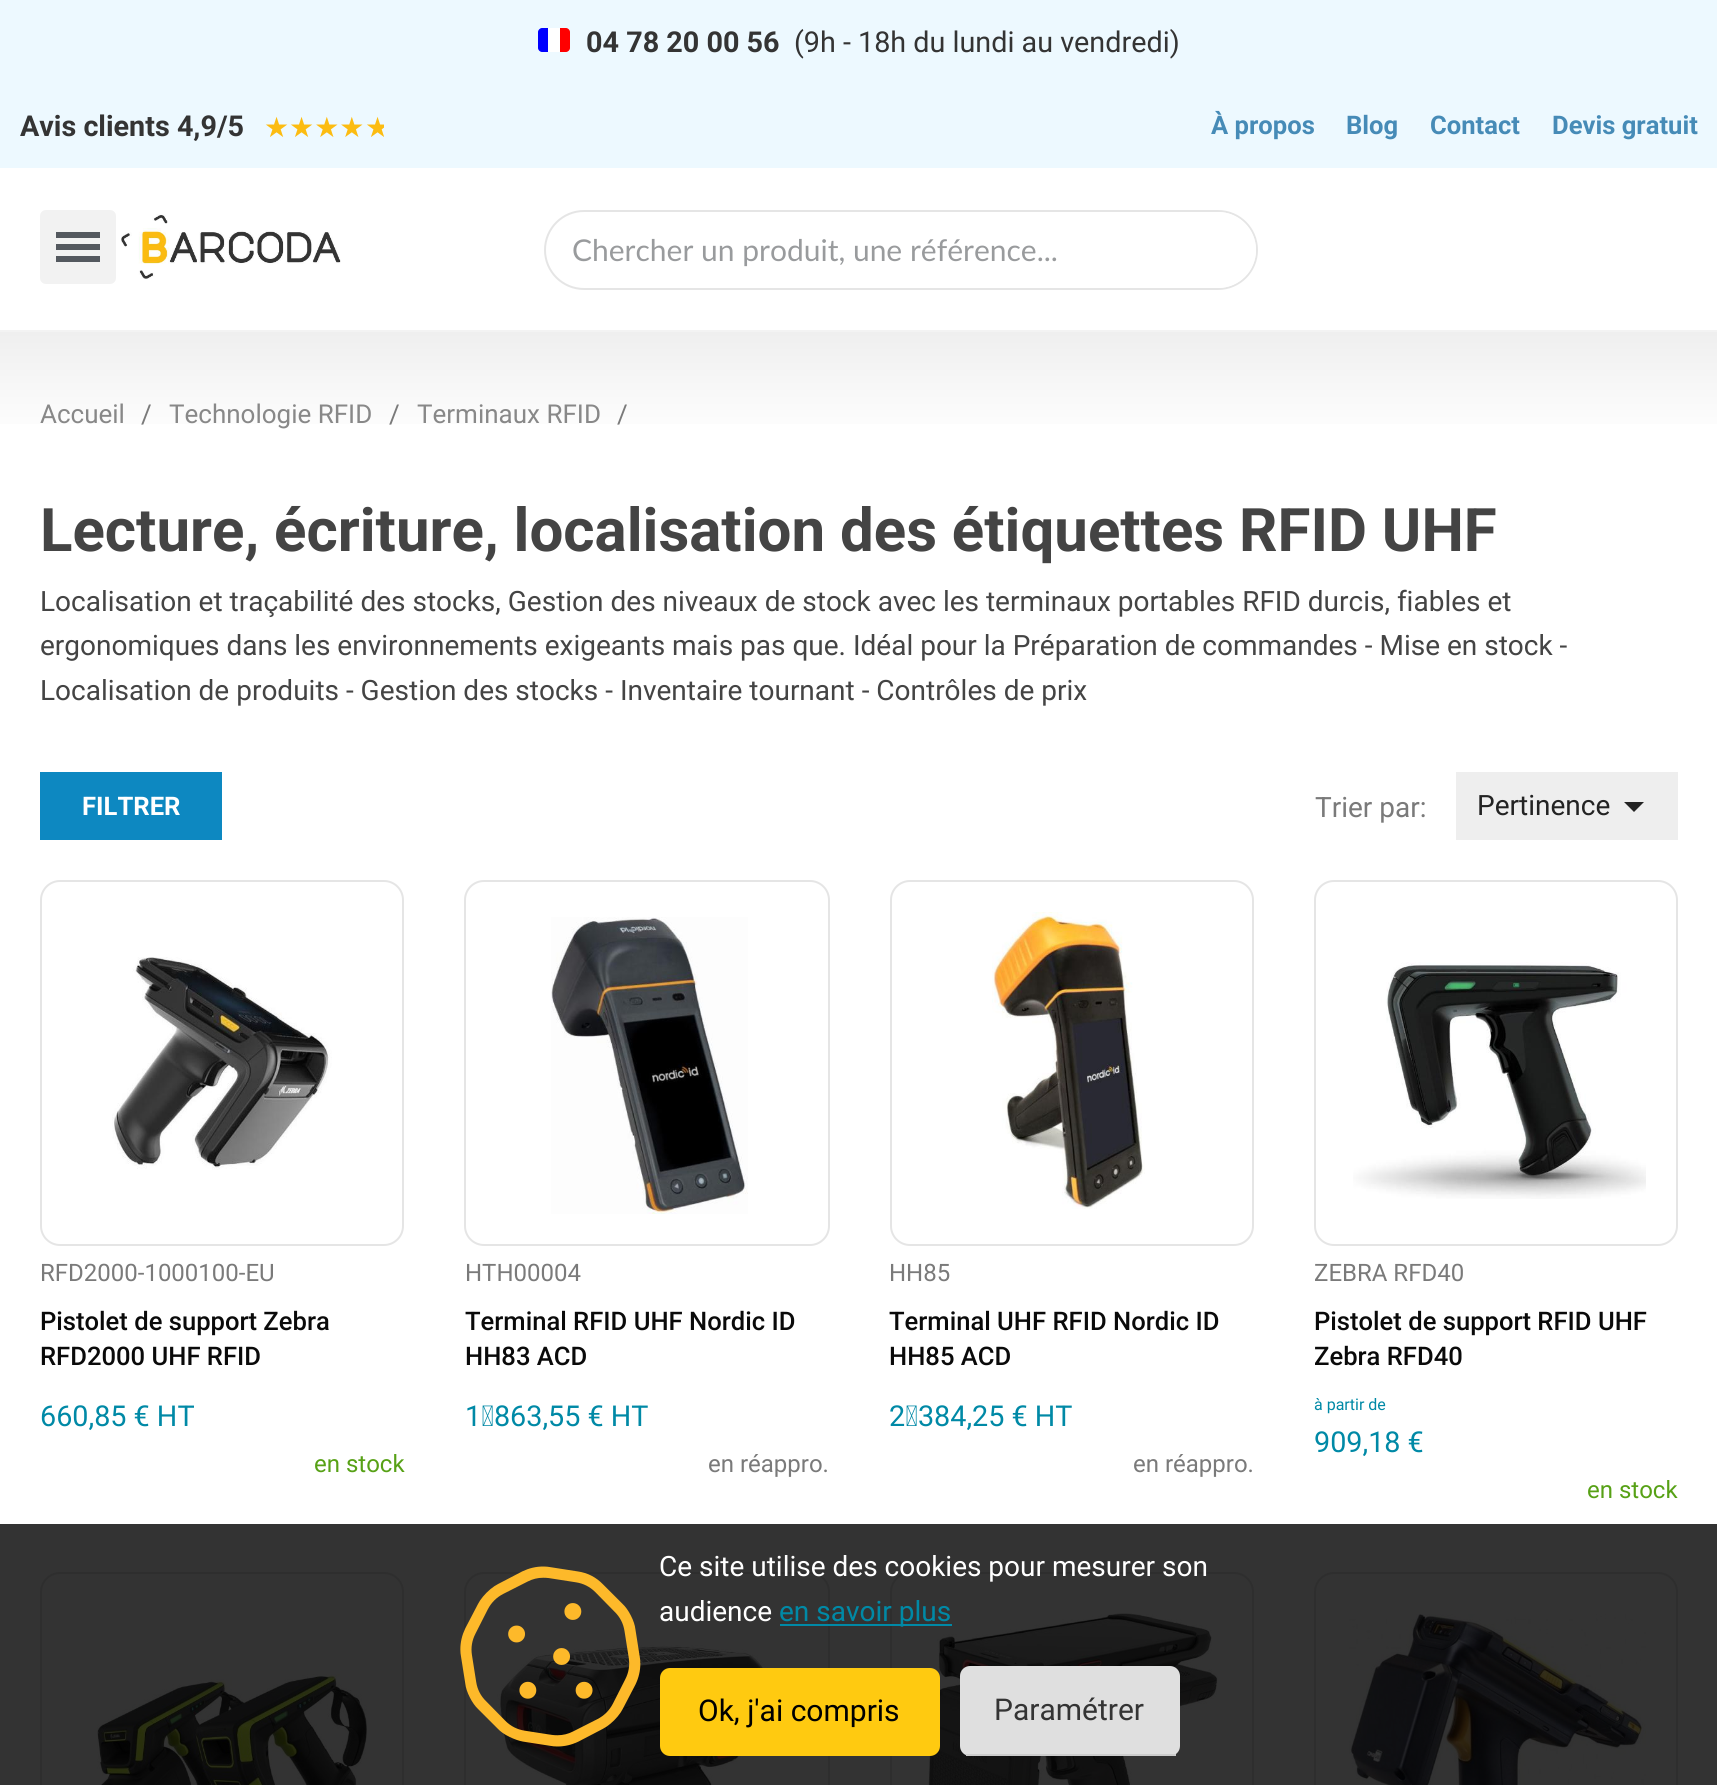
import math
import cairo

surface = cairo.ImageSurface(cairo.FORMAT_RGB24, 1717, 1785)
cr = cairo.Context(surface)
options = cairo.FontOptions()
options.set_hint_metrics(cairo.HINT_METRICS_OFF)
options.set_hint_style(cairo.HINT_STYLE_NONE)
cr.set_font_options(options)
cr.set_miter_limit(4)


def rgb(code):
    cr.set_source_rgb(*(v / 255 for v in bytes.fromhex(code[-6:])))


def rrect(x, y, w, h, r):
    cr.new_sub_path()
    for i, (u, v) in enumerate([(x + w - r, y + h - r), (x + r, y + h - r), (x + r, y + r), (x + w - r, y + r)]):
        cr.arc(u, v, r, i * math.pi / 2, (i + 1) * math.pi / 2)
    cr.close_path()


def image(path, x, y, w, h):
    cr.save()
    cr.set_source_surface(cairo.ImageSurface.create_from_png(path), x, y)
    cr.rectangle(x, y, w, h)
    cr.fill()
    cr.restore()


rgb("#ffffff")
cr.paint()
rgb("#edf9ff")
cr.rectangle(0, 0, 1717, 168)
cr.fill()
rgb("#0000ff")
cr.new_path()
cr.move_to(542, 28)
cr.line_to(548, 28)
cr.line_to(548, 52)
cr.line_to(542, 52)
cr.curve_to(540, 52, 538, 50, 538, 48)
cr.line_to(538, 32)
cr.curve_to(538, 30, 540, 28, 542, 28)
cr.close_path()
cr.fill()
rgb("#ffffff")
cr.rectangle(548, 28, 12, 24)
cr.fill()
rgb("#ff0000")
cr.new_path()
cr.move_to(560, 28)
cr.line_to(566, 28)
cr.curve_to(568, 28, 570, 30, 570, 32)
cr.line_to(570, 48)
cr.curve_to(570, 50, 568, 52, 566, 52)
cr.line_to(560, 52)
cr.close_path()
cr.fill()
rgb("#f3f3f3")
cr.rectangle(0, 330, 1717, 2)
cr.fill()
rgb("#f2f2f2")
rrect(40, 210, 76, 74, 6)
cr.fill()
for x, y, w, h, color in [
    (56, 244, 44, 6, "#54595f"),
    (56, 232, 44, 6, "#54595f"),
    (56, 256, 44, 6, "#54595f"),
]:
    rgb(color)
    cr.rectangle(x, y, w, h)
    cr.fill()
image("img/1.png", 121, 214, 220, 65)
rrect(545, 211, 712, 78, 39)
rgb("#e5e5e5")
cr.stroke()
rgb("#ffffff")
cr.new_path()
cr.move_to(1176, 212)
cr.line_to(1218, 212)
cr.curve_to(1239, 212, 1256, 229, 1256, 250)
cr.curve_to(1256, 271, 1239, 288, 1218, 288)
cr.line_to(1176, 288)
cr.close_path()
cr.fill()
gradient = cairo.LinearGradient(859, 332, 859, 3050)
gradient.add_color_stop_rgba(0, 0.937, 0.937, 0.937, 1)
gradient.add_color_stop_rgba(0.04, 1, 1, 1, 1)
cr.set_source(gradient)
cr.rectangle(0, 332, 1717, 92)
cr.fill()
gradient = cairo.LinearGradient(859, 332, 859, 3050)
gradient.add_color_stop_rgba(0, 0.188, 0.188, 0.188, 1)
gradient.add_color_stop_rgba(0.04, 0.2, 0.2, 0.2, 1)
cr.set_source(gradient)
cr.rectangle(0, 1524, 1717, 261)
cr.fill()
rgb("#0d88c1")
cr.rectangle(40, 772, 182, 68)
cr.fill()
rgb("#eeeeee")
cr.rectangle(1456, 772, 222, 68)
cr.fill()
rgb("#232323")
cr.new_path()
cr.move_to(1624, 802)
cr.line_to(1644, 802)
cr.line_to(1634, 812)
cr.close_path()
cr.fill()
rrect(41, 881, 362, 364, 19)
rgb("#e5e5e5")
cr.stroke()
image("img/2.png", 112, 957, 220, 213)
rrect(465, 881, 364, 364, 19)
cr.stroke()
image("img/3.png", 551, 917, 197, 297)
rrect(891, 881, 362, 364, 19)
cr.stroke()
image("img/4.png", 992, 912, 153, 297)
rrect(1315, 881, 362, 364, 19)
cr.stroke()
image("img/5.png", 1353, 962, 293, 237)
rrect(41, 1573, 362, 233, 19)
rgb("#2e2e2e")
cr.stroke()
image("img/6.png", 97, 1674, 270, 111)
rrect(465, 1573, 364, 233, 19)
cr.stroke()
image("img/7.png", 496, 1645, 297, 140)
rrect(891, 1573, 362, 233, 19)
cr.stroke()
image("img/8.png", 928, 1613, 290, 172)
rrect(1315, 1573, 362, 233, 19)
cr.stroke()
image("img/9.png", 1349, 1614, 297, 171)
image("img/10.png", 460, 1566, 181, 181)
rgb("#0089a6")
cr.rectangle(780, 1624, 172, 2)
cr.fill()
rgb("#ffca10")
rrect(660, 1668, 280, 88, 10)
cr.fill()
rgb("#dfdfdf")
rrect(960, 1666, 220, 90, 10)
cr.fill()
rgb("#cccccc")
cr.rectangle(966, 1754, 210, 2)
cr.fill()
cr.select_font_face("Roboto", cairo.FONT_SLANT_NORMAL, cairo.FONT_WEIGHT_BOLD)
cr.set_font_size(28.75)
rgb("#343434")
cr.move_to(586, 52)
cr.show_text("04 78 20 00 56")
cr.select_font_face("Roboto")
cr.move_to(794, 52)
cr.show_text("(9h - 18h du lundi au vendredi)")
cr.select_font_face("Roboto", cairo.FONT_SLANT_NORMAL, cairo.FONT_WEIGHT_BOLD)
cr.move_to(20, 136)
cr.show_text("Avis clients 4,9/5")
cr.select_font_face("DejaVu Sans")
cr.set_font_size(28)
rgb("#fcbc11")
cr.move_to(264, 137)
cr.show_text("★★★★")
cr.save()
cr.rectangle(364, 112, 20, 28)
cr.clip()
cr.move_to(365, 137)
cr.show_text("★")
cr.restore()
cr.select_font_face("Roboto", cairo.FONT_SLANT_NORMAL, cairo.FONT_WEIGHT_BOLD)
cr.set_font_size(25.6)
rgb("#468bb7")
for x, y, s in [
    (1211, 134, "À propos"),
    (1346, 134, "Blog"),
    (1430, 134, "Contact"),
    (1552, 134, "Devis gratuit"),
]:
    cr.move_to(x, y)
    cr.show_text(s)
cr.select_font_face("Lato")
cr.set_font_size(30)
rgb("#999b9d")
cr.move_to(572, 261)
cr.show_text("Chercher un produit, une référence...")
cr.select_font_face("Roboto")
cr.set_font_size(26)
rgb("#888888")
cr.move_to(40, 423)
cr.show_text("Accueil")
rgb("#7a7a7a")
cr.move_to(141, 423)
cr.show_text("/")
rgb("#888888")
cr.move_to(169, 423)
cr.show_text("Technologie RFID")
rgb("#7a7a7a")
cr.move_to(389, 423)
cr.show_text("/")
rgb("#888888")
cr.move_to(417, 423)
cr.show_text("Terminaux RFID")
rgb("#7a7a7a")
cr.move_to(617, 423)
cr.show_text("/")
cr.select_font_face("Roboto", cairo.FONT_SLANT_NORMAL, cairo.FONT_WEIGHT_BOLD)
cr.set_font_size(60)
rgb("#444444")
cr.move_to(40, 551)
cr.show_text("Lecture, écriture, localisation des étiquettes RFID UHF")
cr.select_font_face("Roboto")
cr.set_font_size(28)
for x, y, s in [
    (40, 611, "Localisation et traçabilité des stocks, Gestion des niveaux de stock avec les terminaux portables RFID durcis, fiables et"),
    (40, 655, "ergonomiques dans les environnements exigeants mais pas que. Idéal pour la Préparation de commandes - Mise en stock -"),
    (40, 700, "Localisation de produits - Gestion des stocks - Inventaire tournant - Contrôles de prix"),
]:
    cr.move_to(x, y)
    cr.show_text(s)
cr.select_font_face("Roboto", cairo.FONT_SLANT_NORMAL, cairo.FONT_WEIGHT_BOLD)
cr.set_font_size(25.6)
rgb("#ffffff")
cr.move_to(82, 815)
cr.show_text("FILTRER")
cr.select_font_face("Roboto")
cr.set_font_size(28)
rgb("#7a7a7a")
cr.move_to(1315, 817)
cr.show_text("Trier par:")
rgb("#232323")
cr.move_to(1477, 815)
cr.show_text("Pertinence")
cr.set_font_size(24)
rgb("#7a7a7a")
cr.move_to(40, 1281)
cr.show_text("RFD2000-1000100-EU")
cr.select_font_face("Roboto Medium")
cr.set_font_size(25.6)
rgb("#0a0a0a")
cr.move_to(40, 1330)
cr.show_text("Pistolet de support Zebra")
cr.move_to(40, 1365)
cr.show_text("RFD2000 UHF RFID")
cr.select_font_face("Roboto")
cr.set_font_size(28.75)
rgb("#0089a6")
cr.move_to(40, 1426)
cr.show_text("660,85 € HT")
cr.set_font_size(24)
rgb("#57a116")
cr.move_to(314, 1472)
cr.show_text("en stock")
rgb("#7a7a7a")
cr.move_to(465, 1281)
cr.show_text("HTH00004")
cr.select_font_face("Roboto Medium")
cr.set_font_size(25.6)
rgb("#0a0a0a")
cr.move_to(465, 1330)
cr.show_text("Terminal RFID UHF Nordic ID")
cr.move_to(465, 1365)
cr.show_text("HH83 ACD")
cr.select_font_face("Roboto")
cr.set_font_size(28.75)
rgb("#0089a6")
cr.move_to(465, 1426)
cr.show_text("1 863,55 € HT")
cr.set_font_size(24)
rgb("#7a7a7a")
cr.move_to(708, 1472)
cr.show_text("en réappro.")
cr.move_to(889, 1281)
cr.show_text("HH85")
cr.select_font_face("Roboto Medium")
cr.set_font_size(25.6)
rgb("#0a0a0a")
cr.move_to(889, 1330)
cr.show_text("Terminal UHF RFID Nordic ID")
cr.move_to(889, 1365)
cr.show_text("HH85 ACD")
cr.select_font_face("Roboto")
cr.set_font_size(28.75)
rgb("#0089a6")
cr.move_to(889, 1426)
cr.show_text("2 384,25 € HT")
cr.set_font_size(24)
rgb("#7a7a7a")
cr.move_to(1133, 1472)
cr.show_text("en réappro.")
cr.move_to(1314, 1281)
cr.show_text("ZEBRA RFD40")
cr.select_font_face("Roboto Medium")
cr.set_font_size(25.6)
rgb("#0a0a0a")
cr.move_to(1314, 1330)
cr.show_text("Pistolet de support RFID UHF")
cr.move_to(1314, 1365)
cr.show_text("Zebra RFD40")
cr.select_font_face("Roboto")
cr.set_font_size(16)
rgb("#0089a6")
cr.move_to(1314, 1410)
cr.show_text("à partir de")
cr.set_font_size(28.75)
cr.move_to(1314, 1452)
cr.show_text("909,18 €")
cr.set_font_size(24)
rgb("#57a116")
cr.move_to(1587, 1498)
cr.show_text("en stock")
cr.set_font_size(28)
rgb("#ffffff")
cr.move_to(659, 1576)
cr.show_text("Ce site utilise des cookies pour mesurer son")
cr.move_to(659, 1621)
cr.show_text("audience")
rgb("#0089a6")
cr.move_to(779, 1621)
cr.show_text("en savoir plus")
cr.set_font_size(30)
rgb("#000000")
cr.move_to(698, 1721)
cr.show_text("Ok, j'ai compris")
rgb("#343434")
cr.move_to(994, 1720)
cr.show_text("Paramétrer")
surface.write_to_png("page.png")
